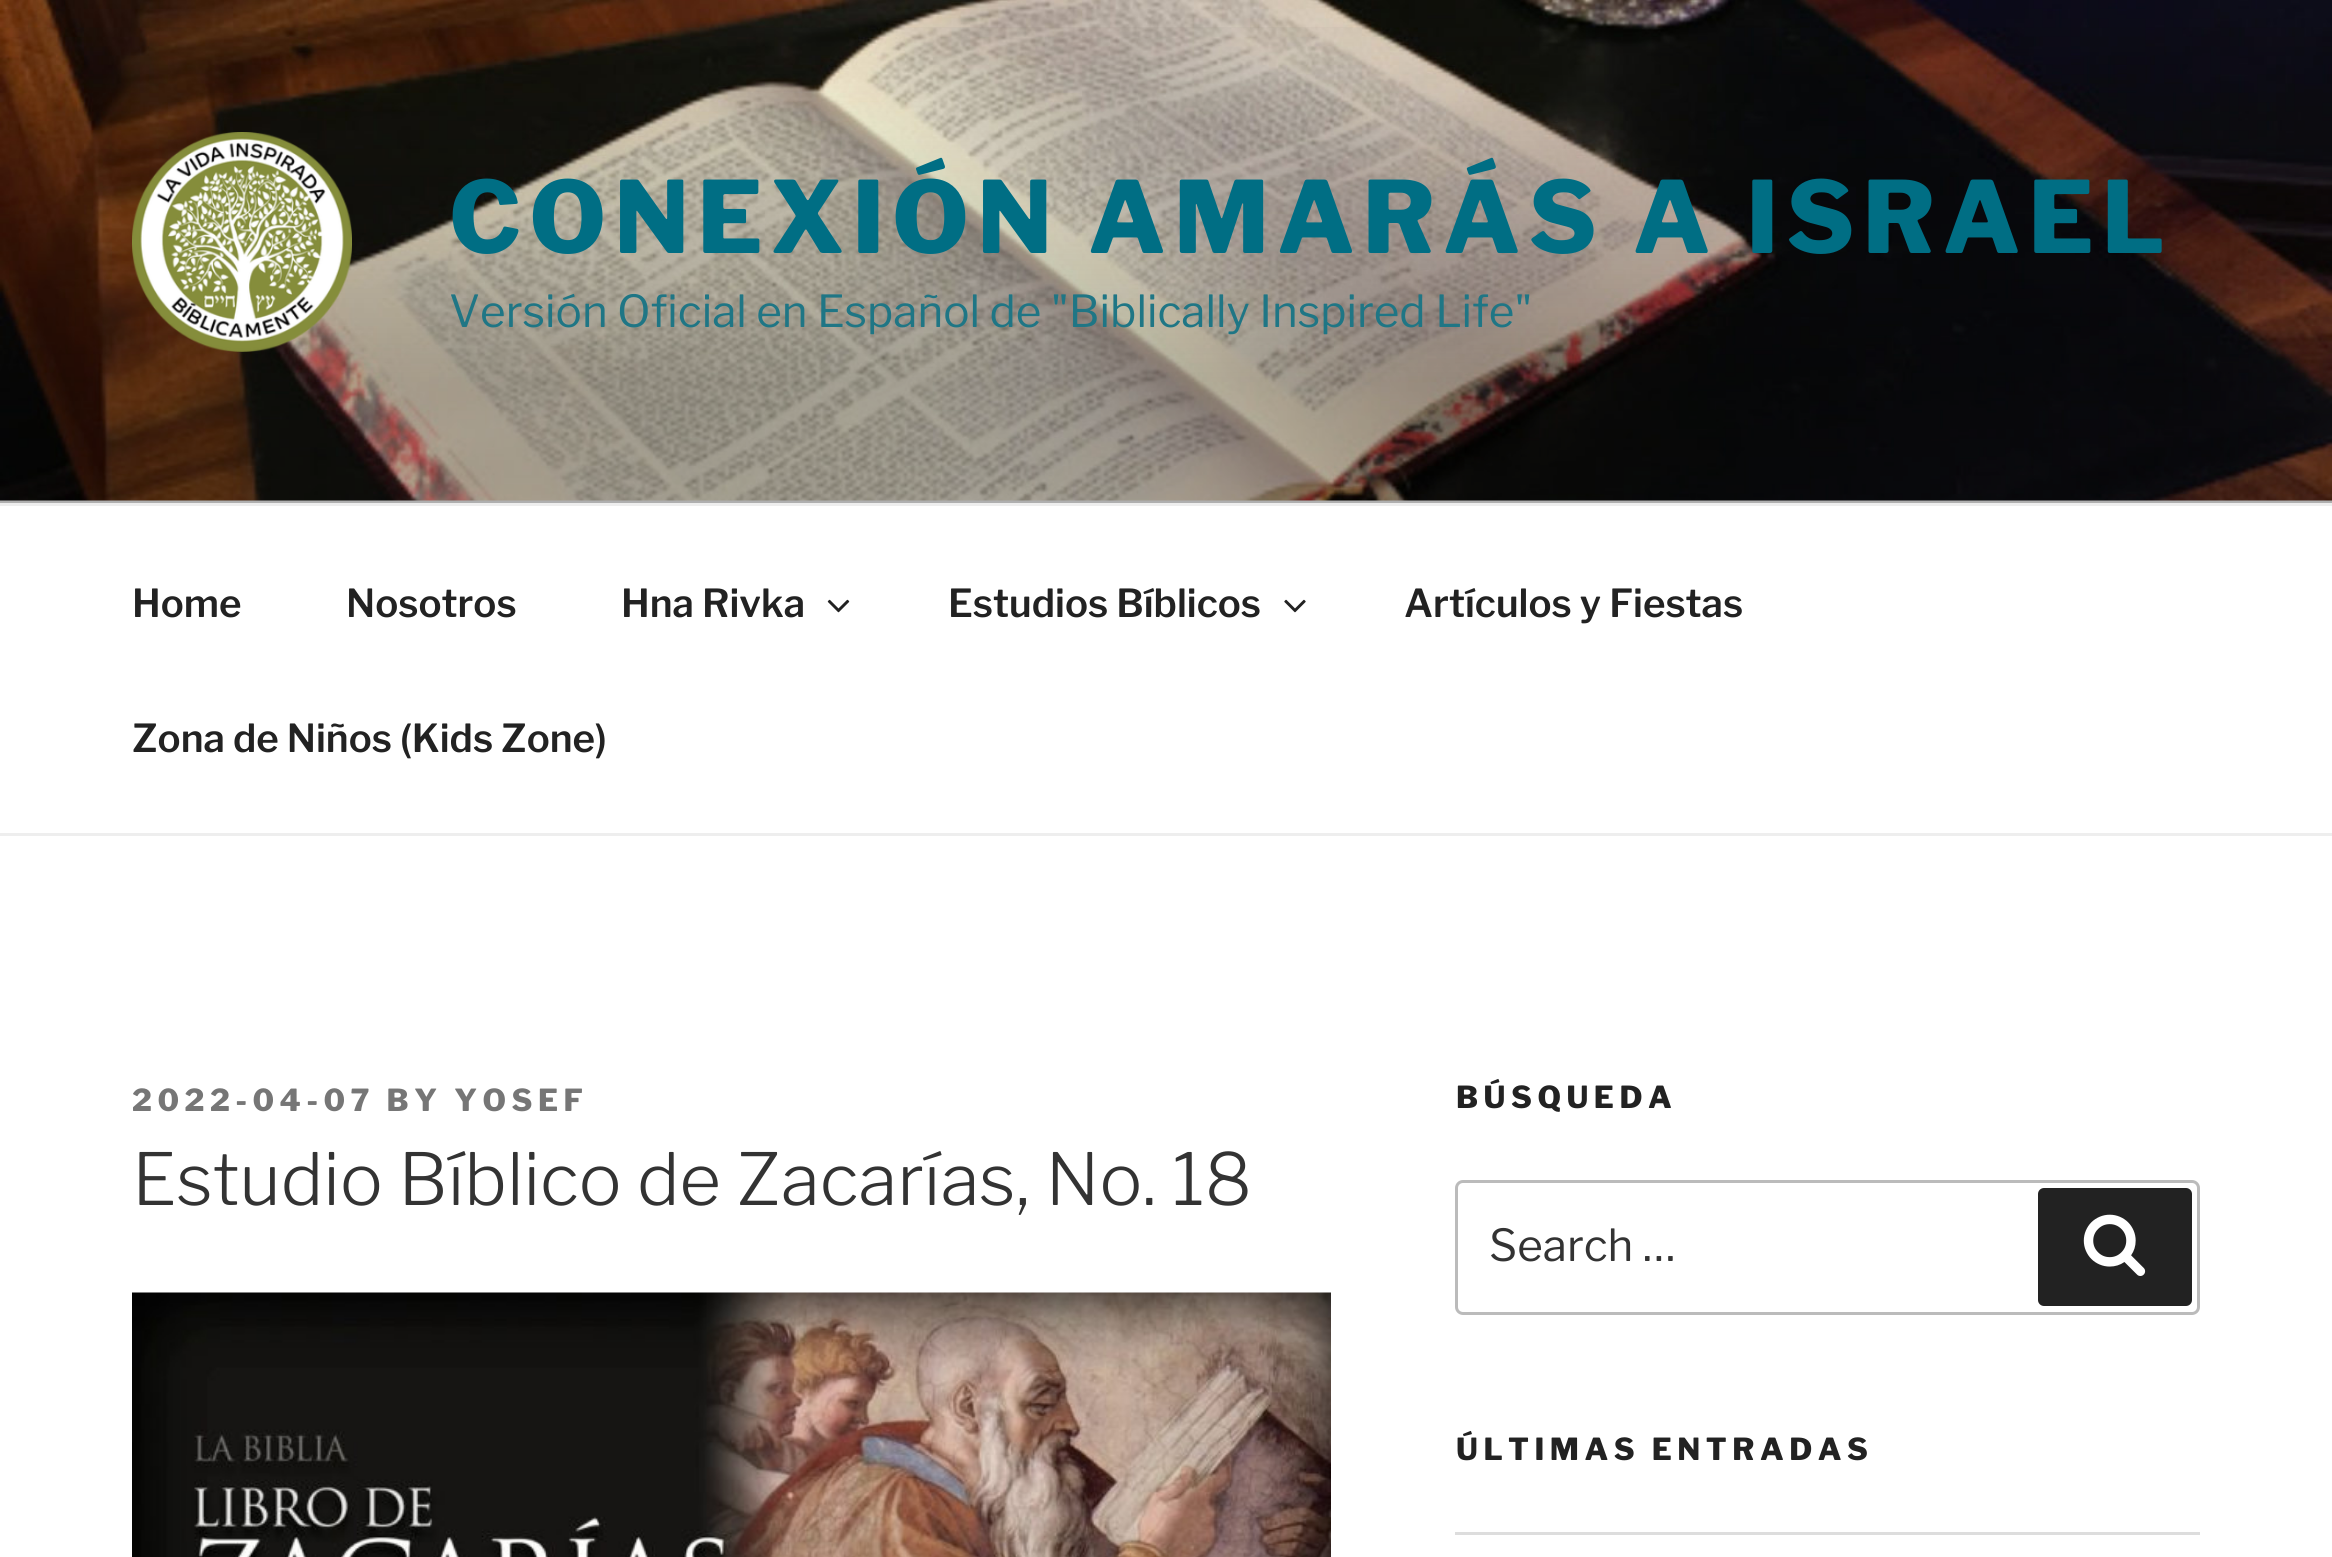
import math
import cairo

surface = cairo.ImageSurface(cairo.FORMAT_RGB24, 2332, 1557)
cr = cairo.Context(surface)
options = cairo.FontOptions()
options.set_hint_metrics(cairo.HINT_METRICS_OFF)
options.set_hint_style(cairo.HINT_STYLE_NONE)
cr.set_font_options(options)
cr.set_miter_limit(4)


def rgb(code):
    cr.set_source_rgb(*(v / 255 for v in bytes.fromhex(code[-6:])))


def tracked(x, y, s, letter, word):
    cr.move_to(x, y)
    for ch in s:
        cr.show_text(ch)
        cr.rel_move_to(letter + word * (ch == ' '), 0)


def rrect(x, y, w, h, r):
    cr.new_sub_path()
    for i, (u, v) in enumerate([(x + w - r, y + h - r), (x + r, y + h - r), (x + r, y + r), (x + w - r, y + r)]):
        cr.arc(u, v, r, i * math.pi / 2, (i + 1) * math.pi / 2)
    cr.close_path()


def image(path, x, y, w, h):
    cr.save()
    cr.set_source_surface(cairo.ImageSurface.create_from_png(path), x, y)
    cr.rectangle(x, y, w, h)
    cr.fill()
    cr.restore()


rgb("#ffffff")
cr.paint()
rgb("#fafafa")
cr.rectangle(0, 500, 2332, 3)
cr.fill()
image("img/1.png", 0, 0, 2332, 501)
gradient = cairo.LinearGradient(1166, 0, 1166, 503)
gradient.add_color_stop_rgba(0, 0, 0, 0, 0)
gradient.add_color_stop_rgba(0.75, 0, 0, 0, 0.3)
gradient.add_color_stop_rgba(1, 0, 0, 0, 0.3)
cr.set_source(gradient)
cr.rectangle(0, 27, 2332, 476)
cr.fill()
image("img/2.png", 132, 132, 220, 220)
rgb("#eeeeee")
cr.rectangle(0, 503, 2332, 3)
cr.fill()
cr.rectangle(0, 833, 2332, 3)
cr.fill()
image("img/3.png", 827, 599, 23, 14)
image("img/4.png", 1284, 599, 22, 14)
image("img/5.png", 132, 1292, 1199, 265)
rrect(1456.5, 1181.5, 742, 132, 6.5)
rgb("#bbbbbb")
cr.set_line_width(3)
cr.stroke()
rgb("#222222")
rrect(2038, 1188, 154, 118, 6)
cr.fill()
image("img/6.png", 2083, 1214, 63, 62)
rgb("#dddddd")
cr.rectangle(1455, 1532, 745, 3)
cr.fill()
cr.select_font_face("Libre Franklin Thin")
cr.set_font_size(99)
rgb("#006e84")
tracked(449, 253, "CONEXIÓN AMARÁS A ISRAEL", 7.9, 0)
cr.select_font_face("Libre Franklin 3 Thin")
cr.set_font_size(44)
rgb("#1f7685")
cr.move_to(449, 327)
cr.show_text("Versión Oficial en Español de \"Biblically Inspired Life\"")
cr.select_font_face("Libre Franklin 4 Thin")
cr.set_font_size(38.5)
rgb("#222222")
for x, y, s in [
    (132, 617, "Home"),
    (346, 617, "Nosotros"),
    (621, 617, "Hna Rivka"),
    (948, 617, "Estudios Bíblicos"),
    (1404, 617, "Artículos y Fiestas"),
    (132, 752, "Zona de Niños (Kids Zone)"),
]:
    cr.move_to(x, y)
    cr.show_text(s)
cr.select_font_face("Libre Franklin Thin")
cr.set_font_size(30.25)
rgb("#767676")
tracked(132, 1111, "2022-04-07 BY YOSEF", 5.5, 0)
cr.select_font_face("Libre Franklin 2 Thin")
cr.set_font_size(71.5)
rgb("#333333")
cr.move_to(132, 1205)
cr.show_text("Estudio Bíblico de Zacarías, No. 18")
cr.select_font_face("Libre Franklin Thin")
cr.set_font_size(30.25)
rgb("#222222")
tracked(1456, 1108, "BÚSQUEDA", 5.5, 0)
cr.select_font_face("Libre Franklin 3 Thin")
cr.set_font_size(44)
rgb("#333333")
cr.move_to(1489, 1261)
cr.show_text("Search …")
cr.select_font_face("Libre Franklin Thin")
cr.set_font_size(30.25)
rgb("#222222")
tracked(1456, 1460, "ÚLTIMAS ENTRADAS", 5.5, 0)
surface.write_to_png("page.png")
